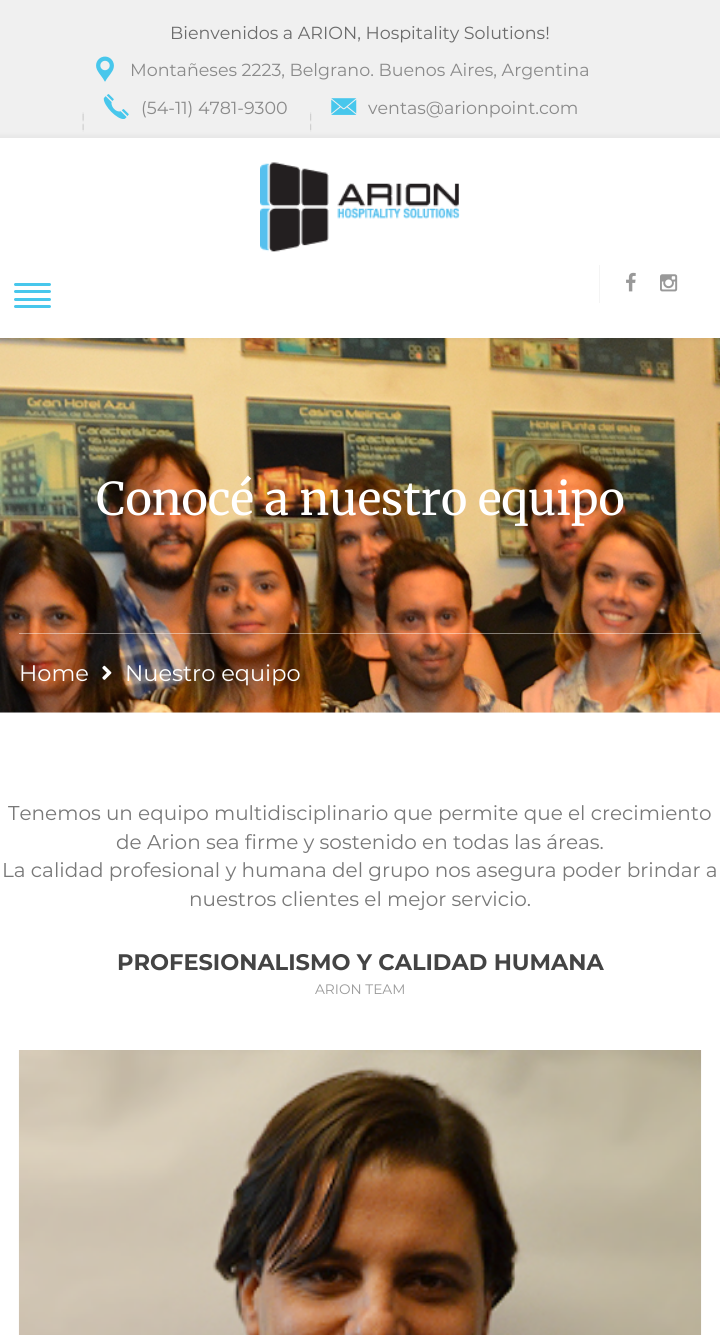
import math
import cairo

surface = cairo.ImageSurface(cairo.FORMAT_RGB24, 720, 1335)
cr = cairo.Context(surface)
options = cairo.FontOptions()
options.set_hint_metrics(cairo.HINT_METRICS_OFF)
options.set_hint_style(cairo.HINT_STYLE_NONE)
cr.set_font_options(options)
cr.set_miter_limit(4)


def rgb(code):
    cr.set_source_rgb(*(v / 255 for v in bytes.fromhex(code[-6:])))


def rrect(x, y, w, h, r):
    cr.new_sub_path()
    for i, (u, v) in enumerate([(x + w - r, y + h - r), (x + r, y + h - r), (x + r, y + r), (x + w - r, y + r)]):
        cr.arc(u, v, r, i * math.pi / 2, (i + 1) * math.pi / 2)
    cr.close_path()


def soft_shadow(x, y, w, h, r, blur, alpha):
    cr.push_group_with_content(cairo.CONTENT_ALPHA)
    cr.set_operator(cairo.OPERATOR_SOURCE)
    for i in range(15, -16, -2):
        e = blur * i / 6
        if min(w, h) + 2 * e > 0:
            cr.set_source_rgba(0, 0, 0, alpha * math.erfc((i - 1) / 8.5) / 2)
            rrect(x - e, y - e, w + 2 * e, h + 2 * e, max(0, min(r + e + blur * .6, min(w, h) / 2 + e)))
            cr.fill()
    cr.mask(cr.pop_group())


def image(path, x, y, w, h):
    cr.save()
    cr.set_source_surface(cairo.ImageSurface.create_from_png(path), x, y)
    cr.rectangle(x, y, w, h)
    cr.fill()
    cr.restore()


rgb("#ffffff")
cr.paint()
rgb("#f0f0f0")
cr.rectangle(0, 0, 720, 138)
cr.fill()
image("img/1.png", 96, 56, 18, 26)
image("img/2.png", 103, 94, 26, 25)
image("img/3.png", 82, 112, 2, 20)
image("img/4.png", 331, 98, 26, 17)
image("img/5.png", 310, 112, 2, 20)
rgb("#f7f7f7")
cr.rectangle(0, 712, 720, 1)
cr.fill()
image("img/9.png", 0, 338, 720, 375)
rgb("#000000")
soft_shadow(-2, 135, 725, 205, 0, 2.5, 0.04)
rgb("#ffffff")
cr.rectangle(0, 138, 720, 200)
cr.fill()
image("img/6.png", 260, 162, 200, 90)
rgb("#48c7ec")
rrect(14, 283, 37, 3, 1.5)
cr.fill()
rrect(14, 290, 37, 3, 1.5)
cr.fill()
rrect(14, 298, 37, 3, 1.5)
cr.fill()
rrect(14, 305, 37, 3, 1.5)
cr.fill()
rgb("#f4f4f4")
cr.rectangle(599, 265, 1, 38)
cr.fill()
image("img/7.png", 626, 272, 10, 20)
image("img/8.png", 660, 274, 18, 18)
cr.set_source_rgba(1, 1, 1, 0.44)
cr.rectangle(19, 633, 682, 1)
cr.fill()
image("img/10.png", 102, 665, 10, 15)
image("img/11.png", 18, 1050, 684, 285)
cr.select_font_face("Montserrat")
cr.set_font_size(17.5)
rgb("#6b6b6b")
cr.move_to(170, 39)
cr.show_text("Bienvenidos a ARION, Hospitality Solutions!")
rgb("#8a8a8a")
for x, y, s in [
    (130, 76, "Montañeses 2223, Belgrano. Buenos Aires, Argentina"),
    (141, 114, "(54-11) 4781-9300"),
    (368, 114, "ventas@arionpoint.com"),
]:
    cr.move_to(x, y)
    cr.show_text(s)
cr.select_font_face("Merriweather")
cr.set_font_size(45)
rgb("#ffffff")
cr.move_to(96, 515)
cr.show_text("Conocé a nuestro equipo")
cr.select_font_face("Montserrat")
cr.set_font_size(22.5)
cr.move_to(19, 681)
cr.show_text("Home")
cr.move_to(125, 681)
cr.show_text("Nuestro equipo")
cr.set_font_size(20)
rgb("#787878")
for x, y, s in [
    (8, 820, "Tenemos un equipo multidisciplinario que permite que el crecimiento"),
    (116, 849, "de Arion sea firme y sostenido en todas las áreas."),
    (2, 877, "La calidad profesional y humana del grupo nos asegura poder brindar a"),
    (189, 906, "nuestros clientes el mejor servicio."),
]:
    cr.move_to(x, y)
    cr.show_text(s)
cr.select_font_face("Montserrat", cairo.FONT_SLANT_NORMAL, cairo.FONT_WEIGHT_BOLD)
cr.set_font_size(22.5)
rgb("#444444")
cr.move_to(117, 970)
cr.show_text("PROFESIONALISMO Y CALIDAD HUMANA")
cr.select_font_face("Montserrat")
cr.set_font_size(13.75)
rgb("#999999")
cr.move_to(315, 994)
cr.show_text("ARION TEAM")
surface.write_to_png("page.png")
